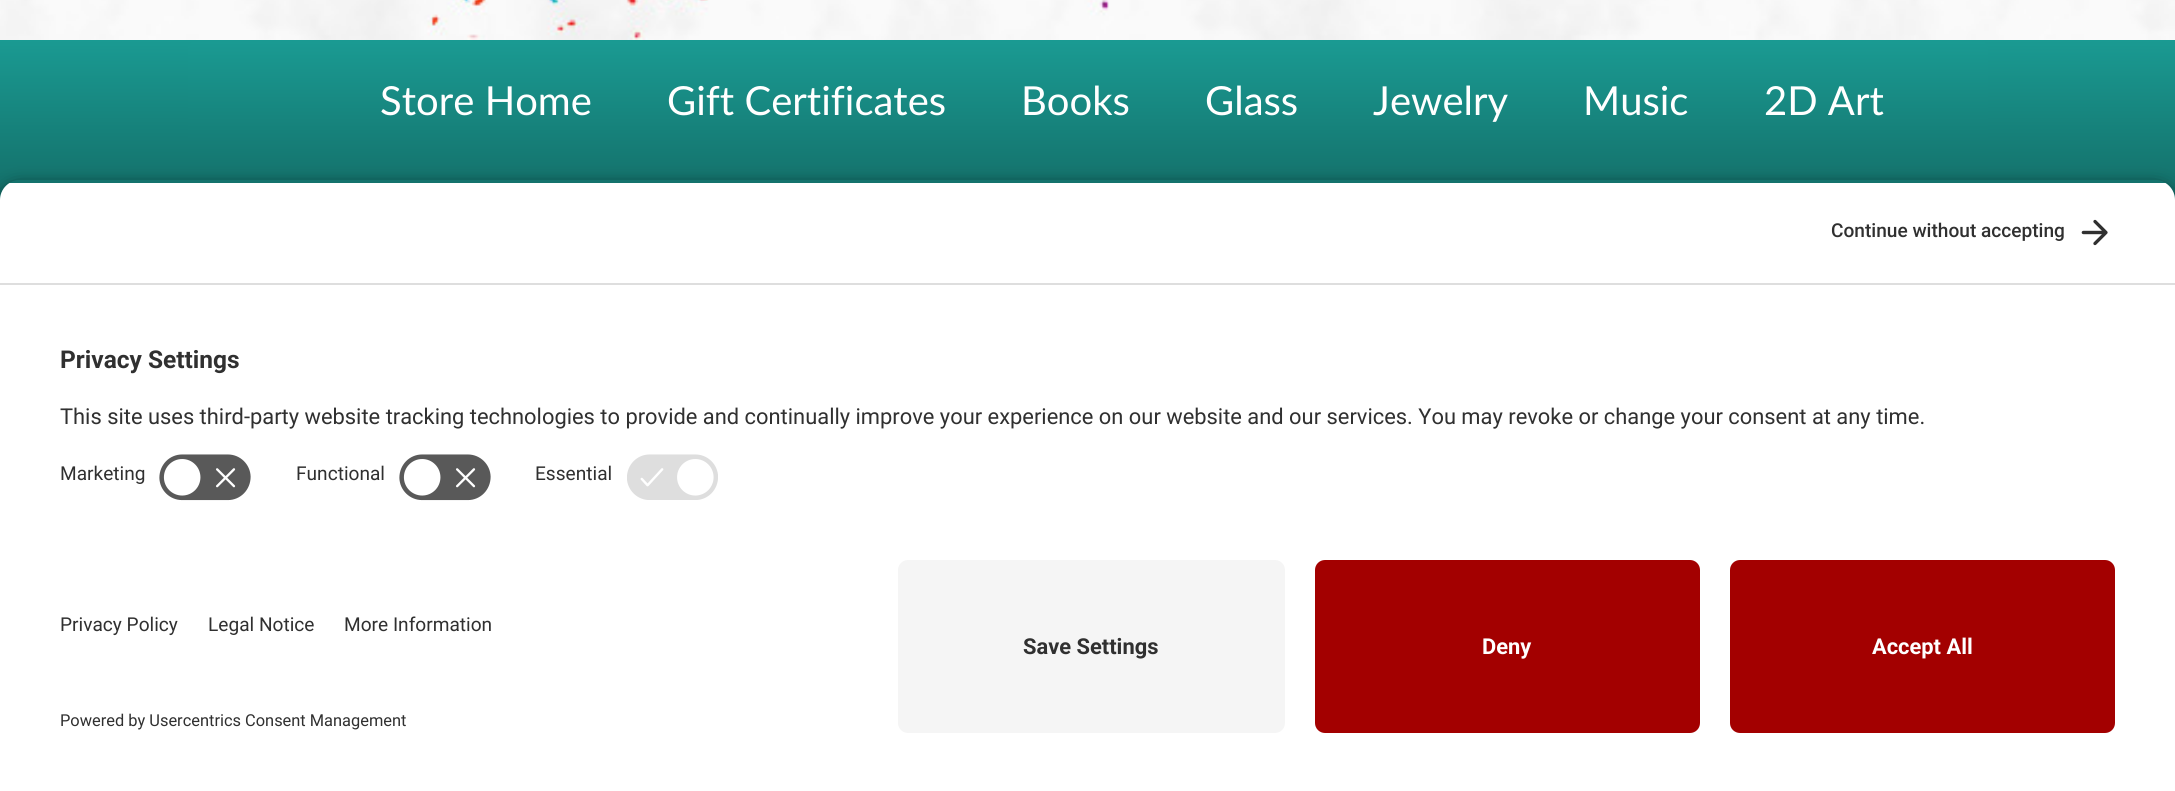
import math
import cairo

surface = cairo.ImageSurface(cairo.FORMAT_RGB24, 2175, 791)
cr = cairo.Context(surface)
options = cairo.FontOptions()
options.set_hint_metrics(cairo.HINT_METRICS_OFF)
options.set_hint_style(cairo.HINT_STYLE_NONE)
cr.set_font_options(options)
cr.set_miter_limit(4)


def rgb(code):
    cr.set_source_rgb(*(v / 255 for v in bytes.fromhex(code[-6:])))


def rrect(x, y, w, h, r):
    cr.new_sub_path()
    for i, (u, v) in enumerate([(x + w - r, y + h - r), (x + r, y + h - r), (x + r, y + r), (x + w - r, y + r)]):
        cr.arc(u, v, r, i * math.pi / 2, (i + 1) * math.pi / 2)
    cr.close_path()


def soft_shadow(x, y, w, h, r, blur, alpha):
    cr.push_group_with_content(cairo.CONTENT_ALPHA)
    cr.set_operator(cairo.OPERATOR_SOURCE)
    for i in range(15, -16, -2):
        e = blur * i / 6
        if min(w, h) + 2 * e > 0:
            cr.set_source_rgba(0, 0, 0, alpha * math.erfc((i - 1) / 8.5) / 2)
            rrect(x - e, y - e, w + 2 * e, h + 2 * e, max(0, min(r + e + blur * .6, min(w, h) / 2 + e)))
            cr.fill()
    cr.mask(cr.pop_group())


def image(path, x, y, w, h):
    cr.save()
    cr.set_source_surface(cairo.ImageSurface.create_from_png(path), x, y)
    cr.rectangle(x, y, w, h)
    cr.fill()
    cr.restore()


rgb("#ffffff")
cr.paint()
image("img/1.png", 0, 0, 2175, 40)
gradient = cairo.LinearGradient(1088, 40, 1088, 280)
gradient.add_color_stop_rgba(0, 0.102, 0.604, 0.573, 1)
gradient.add_color_stop_rgba(1, 0.063, 0.345, 0.325, 1)
cr.set_source(gradient)
cr.rectangle(0, 40, 2175, 160)
cr.fill()
rgb("#1a9a92")
rrect(188, 40, 1800, 240, 10)
cr.fill()
cr.save()
rrect(188, 40, 1800, 240, 10)
cr.clip()
gradient = cairo.LinearGradient(1088, 42, 1088, 278)
gradient.add_color_stop_rgba(0, 0.102, 0.604, 0.573, 1)
gradient.add_color_stop_rgba(1, 0.063, 0.345, 0.325, 1)
cr.set_source(gradient)
cr.rectangle(188, 43, 1800, 140)
cr.fill()
cr.restore()
cr.save()
cr.set_fill_rule(cairo.FILL_RULE_EVEN_ODD)
cr.new_path()
cr.move_to(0, 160)
cr.line_to(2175, 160)
cr.line_to(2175, 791)
cr.line_to(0, 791)
cr.close_path()
cr.move_to(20, 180)
cr.line_to(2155, 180)
cr.curve_to(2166, 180, 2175, 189, 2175, 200)
cr.line_to(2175, 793)
cr.line_to(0, 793)
cr.line_to(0, 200)
cr.curve_to(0, 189, 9, 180, 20, 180)
cr.close_path()
cr.clip()
rgb("#000000")
soft_shadow(0, 188, 2175, 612, 20, 9, 0.8)
cr.restore()
cr.save()
cr.new_path()
cr.move_to(20, 180)
cr.line_to(2155, 180)
cr.curve_to(2166, 180, 2175, 189, 2175, 200)
cr.line_to(2175, 540)
cr.line_to(0, 540)
cr.line_to(0, 200)
cr.curve_to(0, 189, 9, 180, 20, 180)
cr.close_path()
cr.clip()
rgb("#ffffff")
cr.rectangle(0, 183, 2175, 100)
cr.fill()
cr.restore()
rgb("#dedede")
cr.rectangle(0, 283, 2175, 2)
cr.fill()
image("img/2.png", 2081, 219, 27, 27)
image("img/3.png", 159, 454, 92, 47)
image("img/3.png", 399, 454, 92, 47)
image("img/4.png", 627, 454, 91, 46)
rgb("#f5f5f5")
rrect(898, 560, 387, 173, 10)
cr.fill()
rgb("#a30000")
rrect(1315, 560, 385, 173, 10)
cr.fill()
rrect(1730, 560, 385, 173, 10)
cr.fill()
cr.select_font_face("Lato")
cr.set_font_size(40)
rgb("#ffffff")
for x, y, s in [
    (380, 115, "Store Home"),
    (667, 115, "Gift Certificates"),
    (1021, 115, "Books"),
    (1205, 115, "Glass"),
    (1373, 115, "Jewelry"),
    (1583, 115, "Music"),
    (1764, 115, "2D Art"),
]:
    cr.move_to(x, y)
    cr.show_text(s)
cr.select_font_face("Roboto Medium")
cr.set_font_size(19.1)
rgb("#303030")
cr.move_to(1831, 237)
cr.show_text("Continue without accepting")
cr.select_font_face("Roboto", cairo.FONT_SLANT_NORMAL, cairo.FONT_WEIGHT_BOLD)
cr.set_font_size(24.5)
cr.move_to(60, 368)
cr.show_text("Privacy Settings")
cr.select_font_face("Roboto")
cr.set_font_size(21.88)
cr.move_to(60, 424)
cr.show_text("This site uses third-party website tracking technologies to provide and continually improve your experience on our website and our services. You may revoke or change your consent at any time.")
cr.set_font_size(19.1)
for x, y, s in [
    (60, 480, "Marketing"),
    (296, 480, "Functional"),
    (535, 480, "Essential"),
    (60, 631, "Privacy Policy"),
    (208, 631, "Legal Notice"),
    (344, 631, "More Information"),
]:
    cr.move_to(x, y)
    cr.show_text(s)
cr.set_font_size(16.4)
cr.move_to(60, 726)
cr.show_text("Powered by Usercentrics Consent Management")
cr.select_font_face("Roboto", cairo.FONT_SLANT_NORMAL, cairo.FONT_WEIGHT_BOLD)
cr.set_font_size(21.88)
cr.move_to(1023, 654)
cr.show_text("Save Settings")
rgb("#ffffff")
cr.move_to(1482, 654)
cr.show_text("Deny")
cr.move_to(1872, 654)
cr.show_text("Accept All")
surface.write_to_png("page.png")
